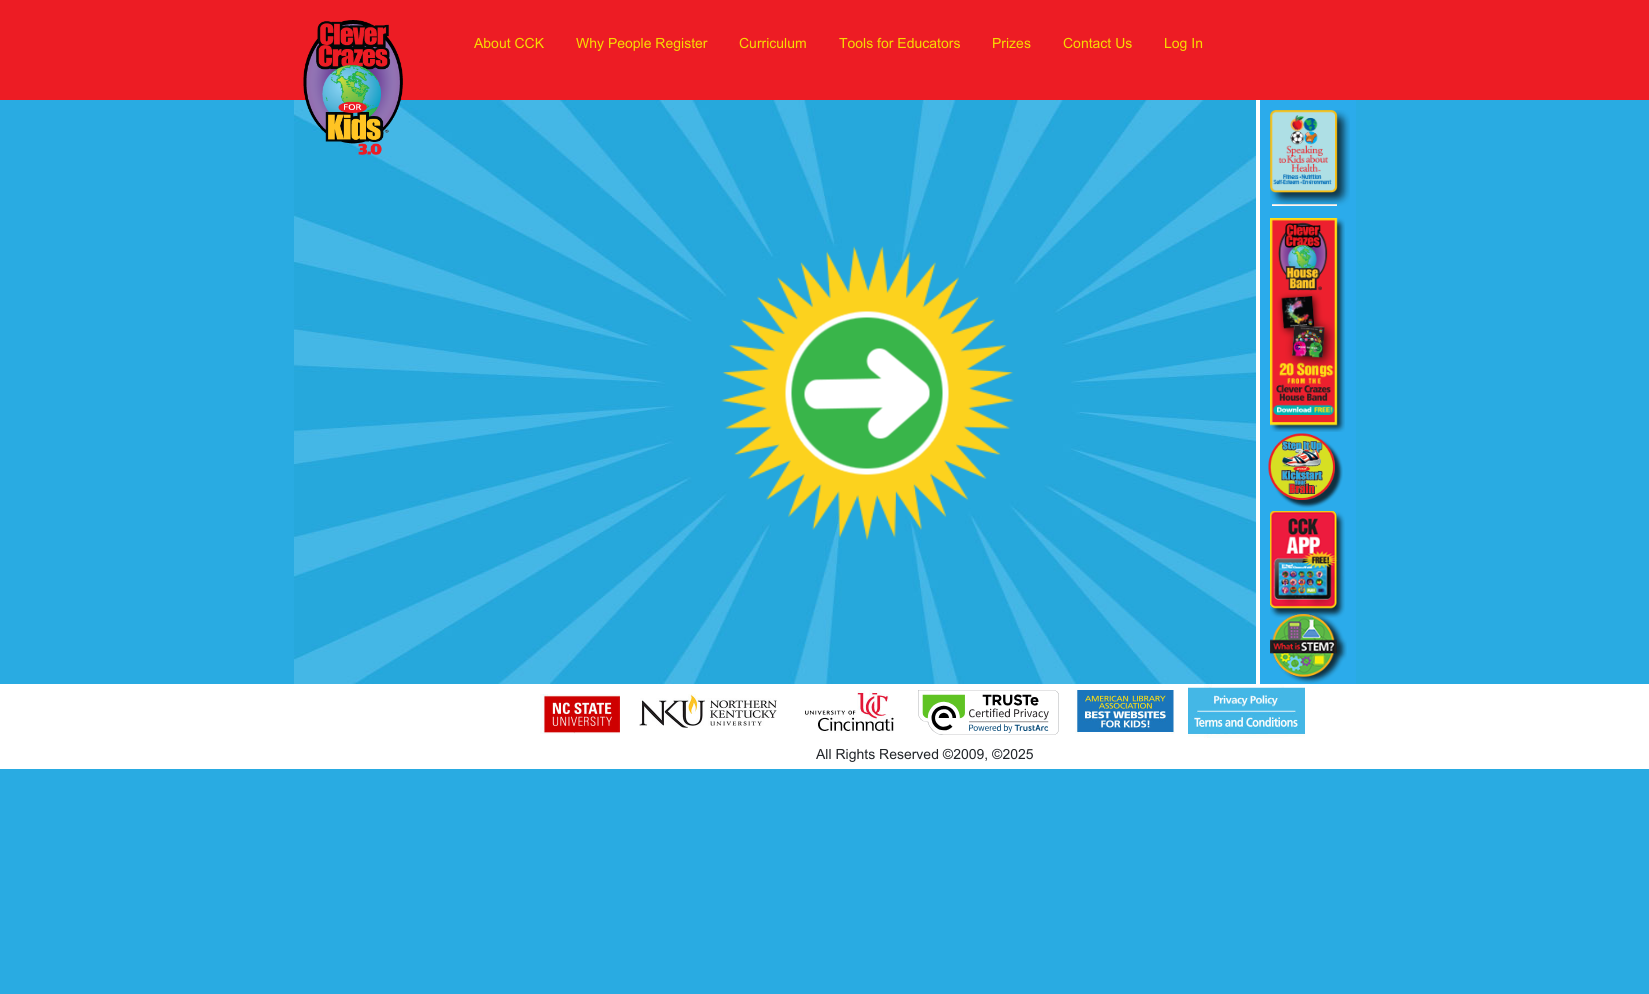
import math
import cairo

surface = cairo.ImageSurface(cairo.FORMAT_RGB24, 1649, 994)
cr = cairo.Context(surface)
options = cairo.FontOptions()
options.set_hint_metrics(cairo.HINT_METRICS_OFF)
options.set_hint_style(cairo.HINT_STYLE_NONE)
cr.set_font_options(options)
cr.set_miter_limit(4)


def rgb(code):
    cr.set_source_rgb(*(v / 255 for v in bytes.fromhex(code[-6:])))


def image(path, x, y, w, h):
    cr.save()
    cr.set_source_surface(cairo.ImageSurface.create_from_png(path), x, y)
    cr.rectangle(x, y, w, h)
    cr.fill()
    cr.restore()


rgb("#29abe2")
cr.paint()
rgb("#ed1c24")
cr.rectangle(0, 0, 1649, 100)
cr.fill()
image("img/2.png", 294, 100, 962, 584)
image("img/1.png", 303, 20, 100, 135)
image("img/3.png", 721, 246, 293, 295)
for x, y, w, h, color in [
    (1260, 100, 96, 584, "#2babeb"),
    (1256, 100, 4, 584, "#ffffff"),
    (1272, 205, 65, 1, "#ffffff"),
    (1272, 204, 65, 1, "#e6e6e6"),
]:
    rgb(color)
    cr.rectangle(x, y, w, h)
    cr.fill()
image("img/4.png", 1270, 110, 80, 96)
image("img/5.png", 1270, 218, 75, 214)
image("img/6.png", 1268, 433, 75, 75)
image("img/7.png", 1270, 511, 75, 107)
image("img/8.png", 1270, 614, 77, 70)
rgb("#ffffff")
cr.rectangle(0, 684, 1649, 85)
cr.fill()
image("img/9.png", 540, 694, 80, 40)
image("img/10.png", 639, 694, 138, 34)
image("img/11.png", 805, 690, 89, 43)
image("img/12.png", 918, 690, 141, 45)
image("img/13.png", 1075, 690, 100, 44)
image("img/14.png", 1188, 684, 117, 27)
image("img/15.png", 1188, 711, 117, 27)
cr.select_font_face("Arial")
cr.set_font_size(14)
rgb("#f7db01")
for x, y, s in [
    (474, 48, "About CCK"),
    (576, 48, "Why People Register"),
    (739, 48, "Curriculum"),
    (839, 48, "Tools for Educators"),
    (992, 48, "Prizes"),
    (1063, 48, "Contact Us"),
    (1164, 48, "Log In"),
]:
    cr.move_to(x, y)
    cr.show_text(s)
rgb("#212529")
cr.move_to(816, 759)
cr.show_text("All Rights Reserved ©2009, ©2025")
surface.write_to_png("page.png")
